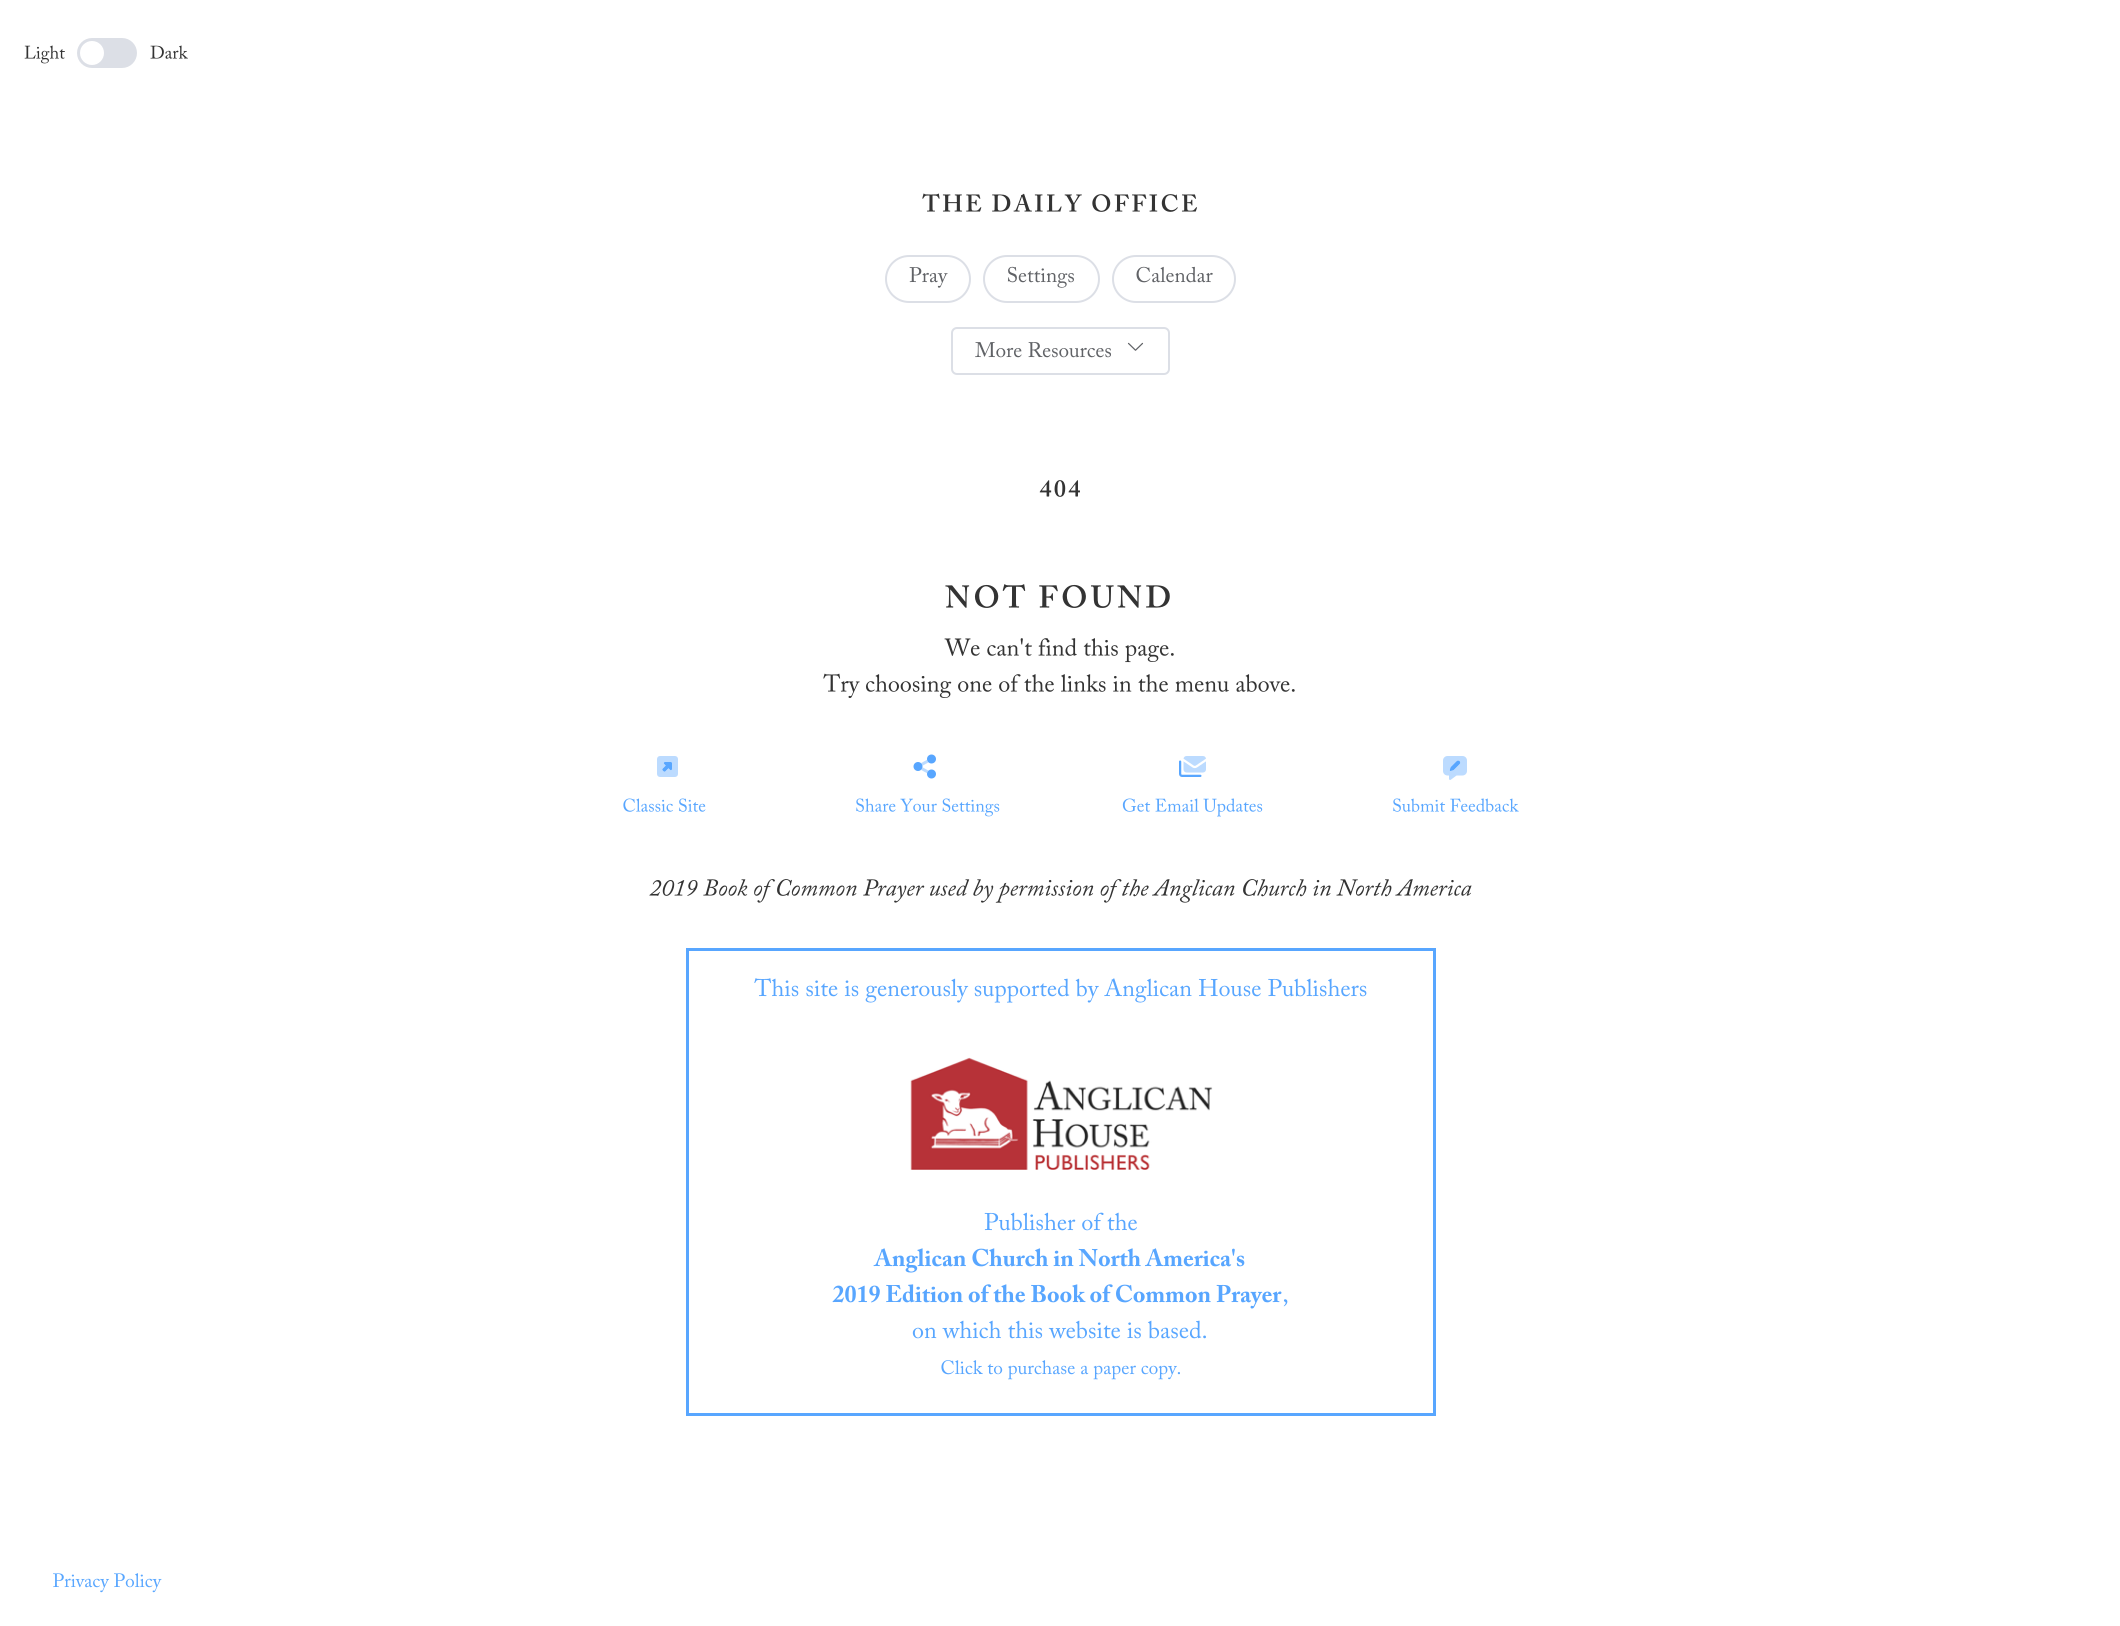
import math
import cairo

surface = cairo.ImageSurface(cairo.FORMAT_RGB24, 2120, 1626)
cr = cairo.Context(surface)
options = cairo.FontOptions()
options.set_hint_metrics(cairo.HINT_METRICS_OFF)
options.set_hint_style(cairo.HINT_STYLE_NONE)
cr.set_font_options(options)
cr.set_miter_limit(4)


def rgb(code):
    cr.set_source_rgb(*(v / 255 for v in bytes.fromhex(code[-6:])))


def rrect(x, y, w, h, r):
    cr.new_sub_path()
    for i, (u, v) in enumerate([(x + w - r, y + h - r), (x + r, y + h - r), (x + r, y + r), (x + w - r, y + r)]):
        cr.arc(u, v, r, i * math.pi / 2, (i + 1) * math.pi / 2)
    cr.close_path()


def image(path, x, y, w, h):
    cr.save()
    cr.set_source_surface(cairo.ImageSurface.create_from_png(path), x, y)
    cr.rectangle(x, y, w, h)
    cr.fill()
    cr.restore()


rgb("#ffffff")
cr.paint()
image("img/1.png", 24, 45, 41, 19)
rgb("#dcdfe6")
rrect(78, 39, 58, 28, 14)
cr.fill_preserve()
cr.stroke()
rgb("#ffffff")
cr.arc(92, 53, 12, 0, 2 * math.pi)
cr.fill()
image("img/2.png", 150, 45, 38, 14)
image("img/3.png", 922, 193, 275, 19)
rrect(886, 256, 84, 46, 23)
rgb("#dcdfe6")
cr.stroke()
image("img/4.png", 909, 267, 39, 21)
rrect(984, 256, 115, 46, 23)
cr.stroke()
image("img/5.png", 1007, 266, 67, 22)
rrect(1113, 256, 122, 46, 23)
cr.stroke()
image("img/6.png", 1136, 266, 77, 17)
rrect(952, 328, 217, 46, 5)
cr.stroke()
image("img/7.png", 975, 342, 136, 16)
image("img/8.png", 1127, 342, 17, 9)
image("img/9.png", 1039, 480, 41, 17)
image("img/10.png", 945, 584, 225, 24)
image("img/11.png", 944, 638, 230, 25)
image("img/12.png", 823, 673, 472, 25)
image("img/13.png", 657, 756, 21, 21)
image("img/14.png", 623, 798, 83, 14)
image("img/15.png", 913, 754, 23, 25)
image("img/16.png", 856, 798, 144, 19)
image("img/17.png", 1179, 756, 27, 21)
image("img/18.png", 1122, 798, 141, 19)
image("img/19.png", 1443, 756, 24, 24)
image("img/20.png", 1393, 798, 126, 14)
image("img/21.png", 649, 879, 823, 24)
cr.rectangle(687.5, 949.5, 747, 465)
rgb("#58a6ff")
cr.set_line_width(3)
cr.stroke()
image("img/22.png", 754, 978, 613, 25)
image("img/23.png", 910, 1057, 303, 113)
image("img/24.png", 984, 1212, 153, 19)
image("img/25.png", 873, 1248, 372, 25)
image("img/26.png", 832, 1284, 450, 25)
image("img/27.png", 1283, 1299, 5, 8)
image("img/28.png", 912, 1320, 294, 19)
image("img/29.png", 941, 1360, 239, 20)
image("img/30.png", 53, 1573, 109, 20)
surface.write_to_png("page.png")
